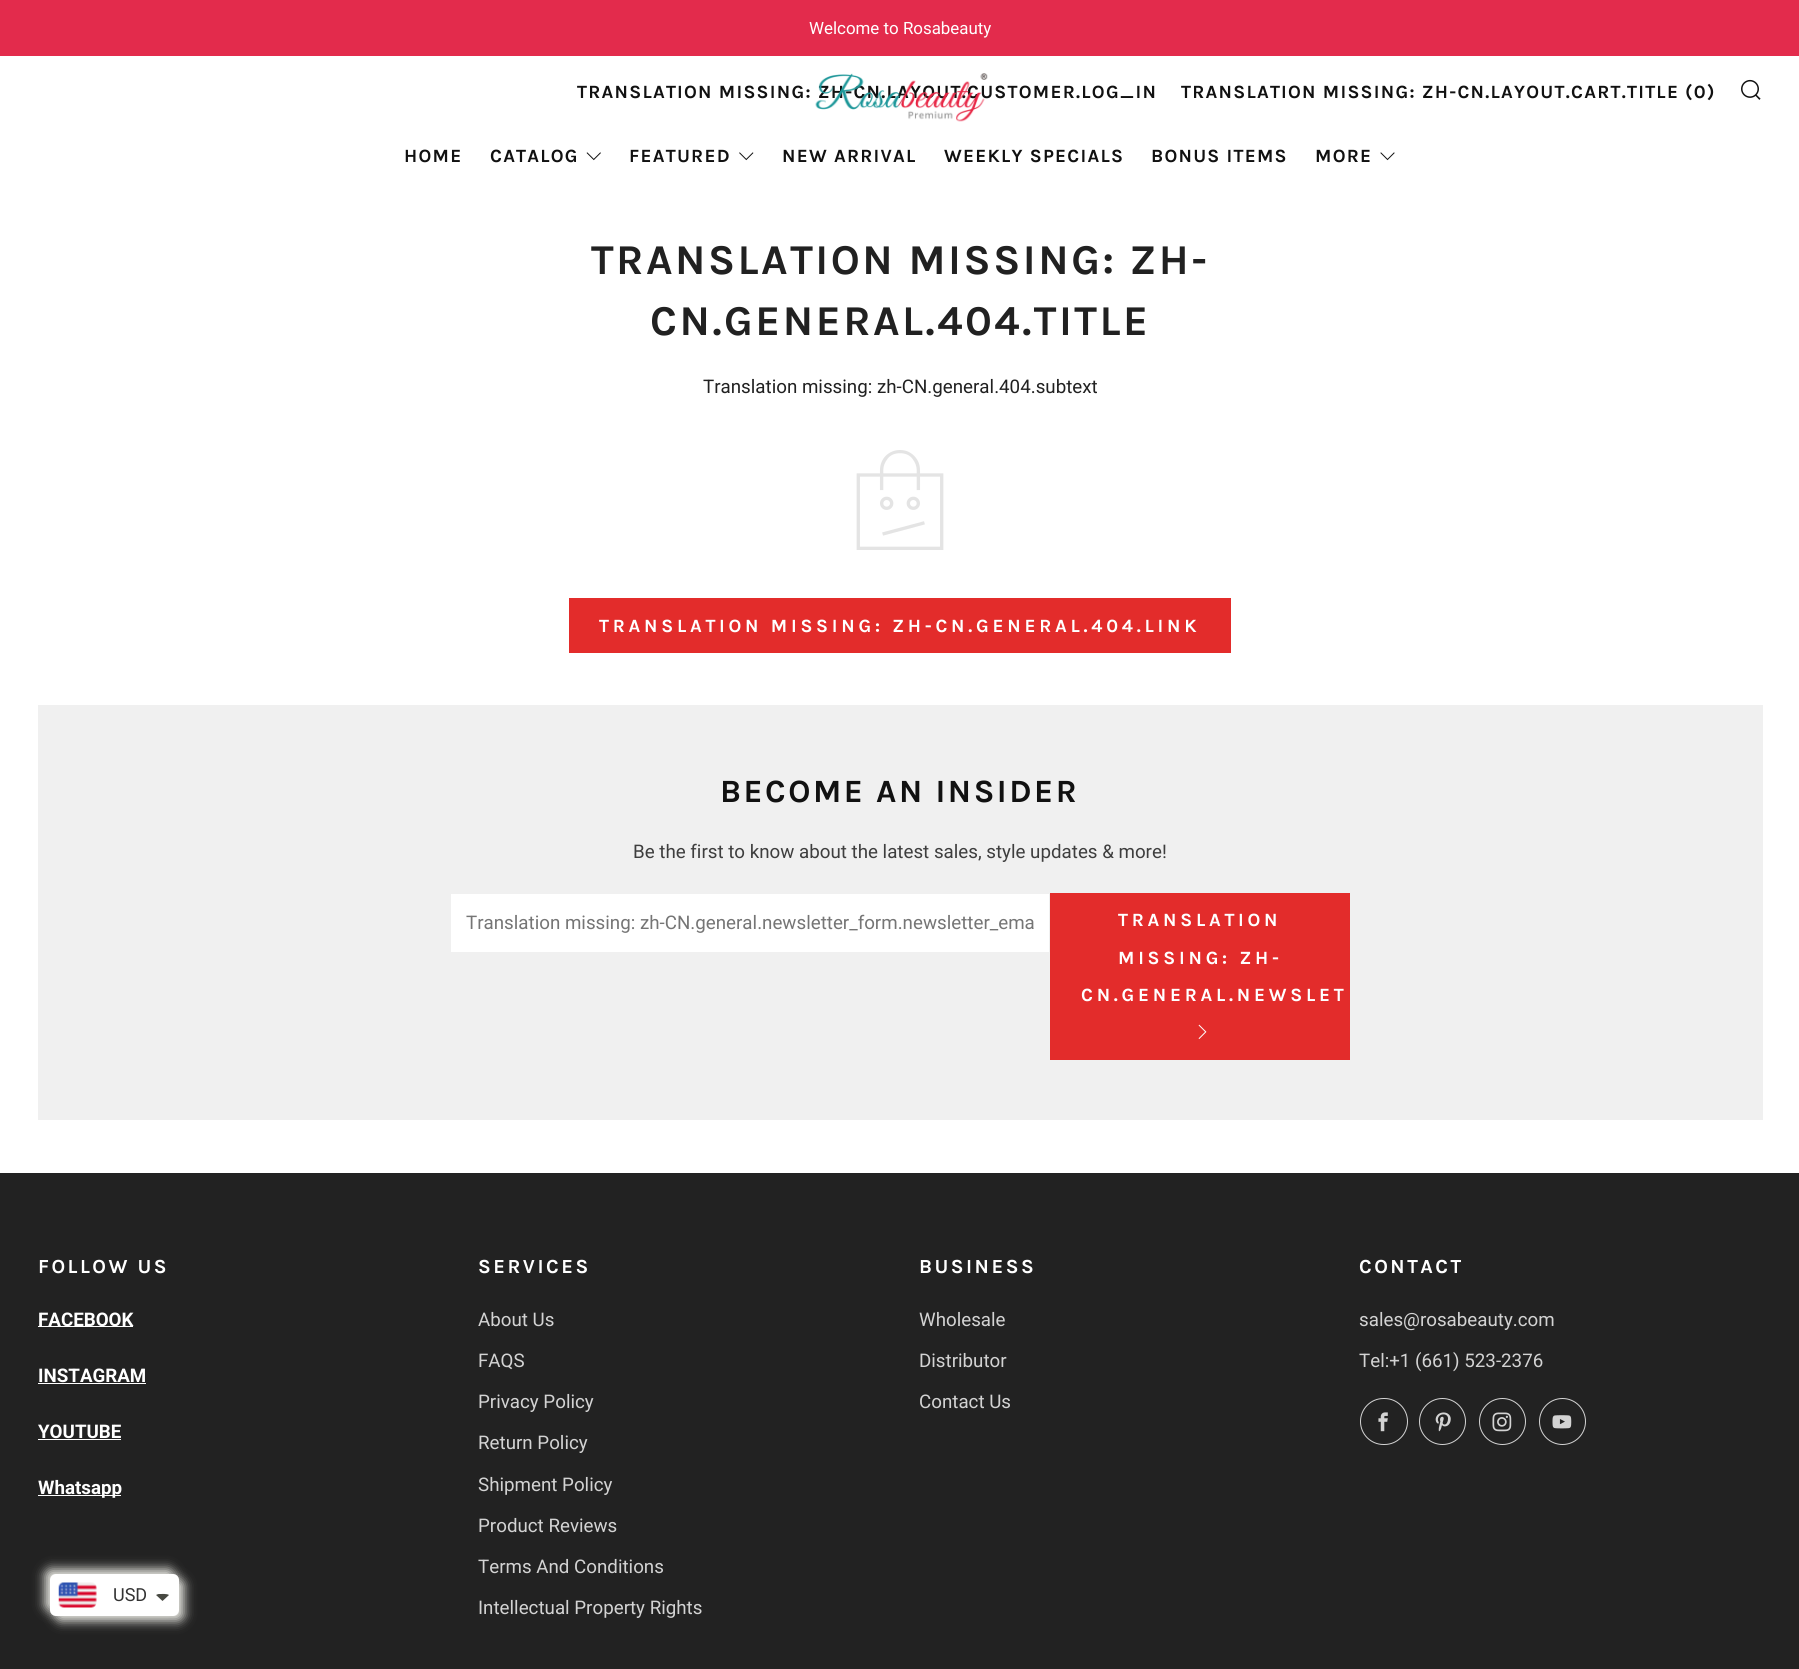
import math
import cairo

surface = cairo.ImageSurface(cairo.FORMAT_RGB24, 1799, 1669)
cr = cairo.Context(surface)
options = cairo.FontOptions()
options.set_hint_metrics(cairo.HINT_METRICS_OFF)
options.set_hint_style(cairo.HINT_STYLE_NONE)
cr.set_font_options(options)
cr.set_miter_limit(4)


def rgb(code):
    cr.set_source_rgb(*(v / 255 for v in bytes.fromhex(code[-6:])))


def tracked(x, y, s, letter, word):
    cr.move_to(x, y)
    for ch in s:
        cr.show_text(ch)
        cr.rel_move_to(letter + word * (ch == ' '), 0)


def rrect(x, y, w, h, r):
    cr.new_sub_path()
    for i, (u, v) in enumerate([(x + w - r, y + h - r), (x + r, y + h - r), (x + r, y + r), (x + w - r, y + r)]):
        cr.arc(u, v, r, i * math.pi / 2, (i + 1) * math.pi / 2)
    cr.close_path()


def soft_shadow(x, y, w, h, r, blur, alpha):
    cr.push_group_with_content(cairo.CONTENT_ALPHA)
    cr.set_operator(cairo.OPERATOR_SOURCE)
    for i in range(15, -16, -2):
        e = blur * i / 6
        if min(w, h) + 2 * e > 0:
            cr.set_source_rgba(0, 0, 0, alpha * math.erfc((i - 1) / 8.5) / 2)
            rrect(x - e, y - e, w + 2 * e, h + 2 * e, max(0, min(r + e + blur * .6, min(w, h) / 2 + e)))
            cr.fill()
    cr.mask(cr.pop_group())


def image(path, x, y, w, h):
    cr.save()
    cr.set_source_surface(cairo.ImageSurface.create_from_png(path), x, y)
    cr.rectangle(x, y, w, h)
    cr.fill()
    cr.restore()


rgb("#ffffff")
cr.paint()
rgb("#e32b4c")
cr.rectangle(0, 0, 1799, 56)
cr.fill()
image("img/2.png", 1741, 79, 20, 21)
image("img/3.png", 586, 152, 15, 9)
image("img/4.png", 739, 152, 15, 9)
image("img/5.png", 1380, 152, 15, 9)
image("img/6.png", 856, 450, 88, 100)
for x, y, w, h, color in [
    (569, 598, 662, 55, "#e32c2b"),
    (38, 705, 1725, 415, "#f0f0f0"),
    (451, 894, 598, 58, "#ffffff"),
    (1050, 893, 300, 167, "#e32c2b"),
]:
    rgb(color)
    cr.rectangle(x, y, w, h)
    cr.fill()
image("img/7.png", 1198, 1024, 9, 15)
for x, y, w, h, color in [
    (0, 1173, 1799, 496, "#222222"),
    (38, 1326, 95, 1, "#ffffff"),
    (38, 1383, 108, 1, "#ffffff"),
    (38, 1439, 83, 1, "#ffffff"),
    (38, 1495, 83, 1, "#ffffff"),
]:
    rgb(color)
    cr.rectangle(x, y, w, h)
    cr.fill()
rrect(1360.5, 1398.5, 47, 46, 23)
rgb("#d3d3d3")
cr.set_line_width(1)
cr.stroke()
image("img/8.png", 1378, 1412, 10, 20)
cr.arc(1442.5, 1421.5, 23, 0, 2 * math.pi)
cr.stroke()
image("img/9.png", 1435, 1412, 16, 20)
cr.arc(1502.5, 1421.5, 23, 0, 2 * math.pi)
cr.stroke()
image("img/10.png", 1492, 1412, 20, 20)
cr.arc(1562.5, 1421.5, 23, 0, 2 * math.pi)
cr.stroke()
image("img/11.png", 1552, 1415, 20, 14)
rgb("#e8e8e2")
soft_shadow(45, 1569, 129, 42, 6, 5.5, 1)
soft_shadow(55, 1579, 129, 42, 6, 5.5, 1)
rgb("#ffffff")
rrect(50, 1574, 129, 42, 6)
cr.fill()
image("img/12.png", 58, 1582, 39, 26)
rgb("#474942")
cr.new_path()
cr.move_to(159, 1594)
cr.curve_to(161.5, 1594, 167, 1593.5, 169, 1595)
cr.line_to(162.5, 1601)
cr.line_to(156, 1595)
cr.curve_to(157, 1594.5, 158, 1594, 159, 1594)
cr.close_path()
cr.fill()
cr.select_font_face("Roboto")
cr.set_font_size(16.9)
rgb("#ffffff")
cr.move_to(809, 34)
cr.show_text("Welcome to Rosabeauty")
cr.select_font_face("Karla", cairo.FONT_SLANT_NORMAL, cairo.FONT_WEIGHT_BOLD)
cr.set_font_size(18.75)
rgb("#111111")
tracked(577, 98, "TRANSLATION MISSING: ZH-CN.LAYOUT.CUSTOMER.LOG_IN", 1.25, 0)
image("img/1.png", 815, 73, 173, 49)
for x, y, s in [
    (1181, 98, "TRANSLATION MISSING: ZH-CN.LAYOUT.CART.TITLE (0)"),
    (404, 162, "HOME"),
    (490, 162, "CATALOG"),
    (629, 162, "FEATURED"),
    (782, 162, "NEW ARRIVAL"),
    (944, 162, "WEEKLY SPECIALS"),
    (1151, 162, "BONUS ITEMS"),
    (1315, 162, "MORE"),
]:
    tracked(x, y, s, 1.25, 0)
cr.set_font_size(42.5)
rgb("#212121")
tracked(591, 274, "TRANSLATION MISSING: ZH-", 2.5, 0)
tracked(650, 335, "CN.GENERAL.404.TITLE", 2.5, 0)
cr.select_font_face("Roboto")
cr.set_font_size(18.75)
cr.move_to(703, 393)
cr.show_text("Translation missing: zh-CN.general.404.subtext")
cr.select_font_face("Karla", cairo.FONT_SLANT_NORMAL, cairo.FONT_WEIGHT_BOLD)
rgb("#ffffff")
tracked(599, 632, "TRANSLATION MISSING: ZH-CN.GENERAL.404.LINK", 3.75, 0)
cr.set_font_size(32.5)
rgb("#111111")
tracked(720, 802, "BECOME AN INSIDER", 2.5, 0)
cr.select_font_face("Roboto")
cr.set_font_size(18.75)
rgb("#3e3e3e")
cr.move_to(633, 858)
cr.show_text("Be the first to know about the latest sales, style updates & more!")
rgb("#757575")
cr.move_to(466, 929)
cr.show_text("Translation missing: zh-CN.general.newsletter_form.newsletter_ema")
cr.select_font_face("Karla", cairo.FONT_SLANT_NORMAL, cairo.FONT_WEIGHT_BOLD)
rgb("#ffffff")
for x, y, s in [
    (1118, 926, "TRANSLATION"),
    (1118, 964, "MISSING: ZH-"),
    (1081, 1001, "CN.GENERAL.NEWSLET"),
]:
    tracked(x, y, s, 3.75, 0)
cr.set_font_size(20)
tracked(38, 1273, "FOLLOW US", 2.5, 0)
cr.select_font_face("Roboto", cairo.FONT_SLANT_NORMAL, cairo.FONT_WEIGHT_BOLD)
cr.set_font_size(18.75)
for x, y, s in [
    (38, 1326, "FACEBOOK"),
    (38, 1382, "INSTAGRAM"),
    (38, 1438, "YOUTUBE"),
    (38, 1494, "Whatsapp"),
]:
    cr.move_to(x, y)
    cr.show_text(s)
cr.select_font_face("Karla", cairo.FONT_SLANT_NORMAL, cairo.FONT_WEIGHT_BOLD)
cr.set_font_size(20)
tracked(478, 1273, "SERVICES", 2.5, 0)
cr.select_font_face("Roboto")
cr.set_font_size(18.75)
rgb("#d3d3d3")
for x, y, s in [
    (478, 1326, "About Us"),
    (478, 1367, "FAQS"),
    (478, 1408, "Privacy Policy"),
    (478, 1449, "Return Policy"),
    (478, 1491, "Shipment Policy"),
    (478, 1532, "Product Reviews"),
    (478, 1573, "Terms And Conditions"),
    (478, 1614, "Intellectual Property Rights"),
]:
    cr.move_to(x, y)
    cr.show_text(s)
cr.select_font_face("Karla", cairo.FONT_SLANT_NORMAL, cairo.FONT_WEIGHT_BOLD)
cr.set_font_size(20)
rgb("#ffffff")
tracked(919, 1273, "BUSINESS", 2.5, 0)
cr.select_font_face("Roboto")
cr.set_font_size(18.75)
rgb("#d3d3d3")
for x, y, s in [
    (919, 1326, "Wholesale"),
    (919, 1367, "Distributor"),
    (919, 1408, "Contact Us"),
]:
    cr.move_to(x, y)
    cr.show_text(s)
cr.select_font_face("Karla", cairo.FONT_SLANT_NORMAL, cairo.FONT_WEIGHT_BOLD)
cr.set_font_size(20)
rgb("#ffffff")
tracked(1359, 1273, "CONTACT", 2.5, 0)
cr.select_font_face("Roboto")
cr.set_font_size(18.75)
rgb("#d3d3d3")
cr.move_to(1359, 1326)
cr.show_text("sales@rosabeauty.com")
cr.move_to(1359, 1367)
cr.show_text("Tel:+1 (661) 523-2376")
cr.set_font_size(18)
rgb("#333333")
cr.move_to(113, 1601)
cr.show_text("USD")
surface.write_to_png("page.png")
